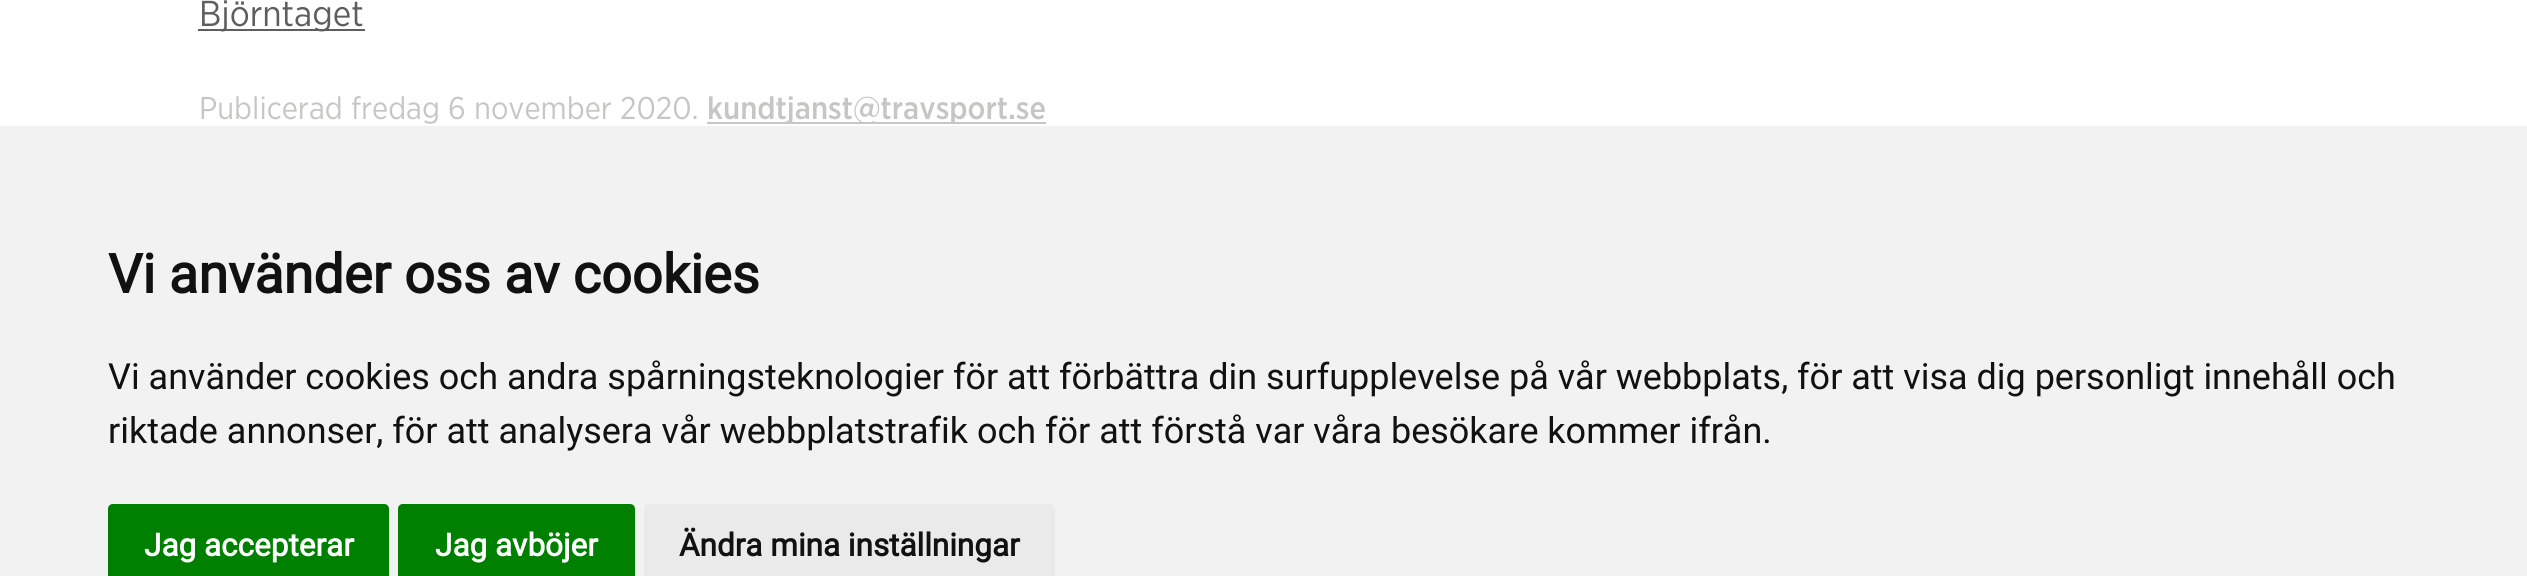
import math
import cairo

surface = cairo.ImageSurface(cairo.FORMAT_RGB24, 2527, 576)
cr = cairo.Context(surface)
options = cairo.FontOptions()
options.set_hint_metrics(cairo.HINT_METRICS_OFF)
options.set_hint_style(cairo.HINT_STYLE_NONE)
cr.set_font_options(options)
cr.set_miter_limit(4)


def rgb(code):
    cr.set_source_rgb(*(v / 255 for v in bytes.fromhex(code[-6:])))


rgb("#ffffff")
cr.paint()
for x, y, w, h, color in [
    (198, 29, 167, 2, "#5e5e5d"),
    (707, 122, 339, 2, "#c6c6c5"),
    (0, 126, 2527, 450, "#f2f2f2"),
]:
    rgb(color)
    cr.rectangle(x, y, w, h)
    cr.fill()
rgb("#008000")
cr.new_path()
cr.move_to(113, 504)
cr.line_to(384, 504)
cr.curve_to(387, 504, 389, 506, 389, 509)
cr.line_to(389, 576)
cr.line_to(108, 576)
cr.line_to(108, 509)
cr.curve_to(108, 506, 110, 504, 113, 504)
cr.close_path()
cr.fill()
cr.new_path()
cr.move_to(403, 504)
cr.line_to(630, 504)
cr.curve_to(633, 504, 635, 506, 635, 509)
cr.line_to(635, 576)
cr.line_to(398, 576)
cr.line_to(398, 509)
cr.curve_to(398, 506, 400, 504, 403, 504)
cr.close_path()
cr.fill()
rgb("#eaeaea")
cr.new_path()
cr.move_to(649, 504)
cr.line_to(1050, 504)
cr.curve_to(1053, 504, 1055, 506, 1055, 509)
cr.line_to(1055, 576)
cr.line_to(644, 576)
cr.line_to(644, 509)
cr.curve_to(644, 506, 646, 504, 649, 504)
cr.close_path()
cr.fill()
cr.select_font_face("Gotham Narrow")
cr.set_font_size(36)
rgb("#5e5e5d")
cr.move_to(199, 26)
cr.show_text("Björntaget")
cr.set_font_size(31.5)
rgb("#c6c6c5")
cr.move_to(199, 119)
cr.show_text("Publicerad fredag 6 november 2020.")
cr.select_font_face("Gotham Narrow Medium")
cr.move_to(707, 119)
cr.show_text("kundtjanst@travsport.se")
cr.select_font_face("Roboto", cairo.FONT_SLANT_NORMAL, cairo.FONT_WEIGHT_BOLD)
cr.set_font_size(54)
rgb("#111111")
cr.move_to(108, 293)
cr.show_text("Vi använder oss av cookies")
cr.select_font_face("Roboto")
cr.set_font_size(36)
cr.move_to(108, 389)
cr.show_text("Vi använder cookies och andra spårningsteknologier för att förbättra din surfupplevelse på vår webbplats, för att visa dig personligt innehåll och")
cr.move_to(108, 443)
cr.show_text("riktade annonser, för att analysera vår webbplatstrafik och för att förstå var våra besökare kommer ifrån.")
cr.select_font_face("Roboto", cairo.FONT_SLANT_NORMAL, cairo.FONT_WEIGHT_BOLD)
cr.set_font_size(31.5)
rgb("#ffffff")
cr.move_to(144, 556)
cr.show_text("Jag accepterar")
cr.move_to(435, 556)
cr.show_text("Jag avböjer")
rgb("#111111")
cr.move_to(679, 556)
cr.show_text("Ändra mina inställningar")
surface.write_to_png("page.png")
